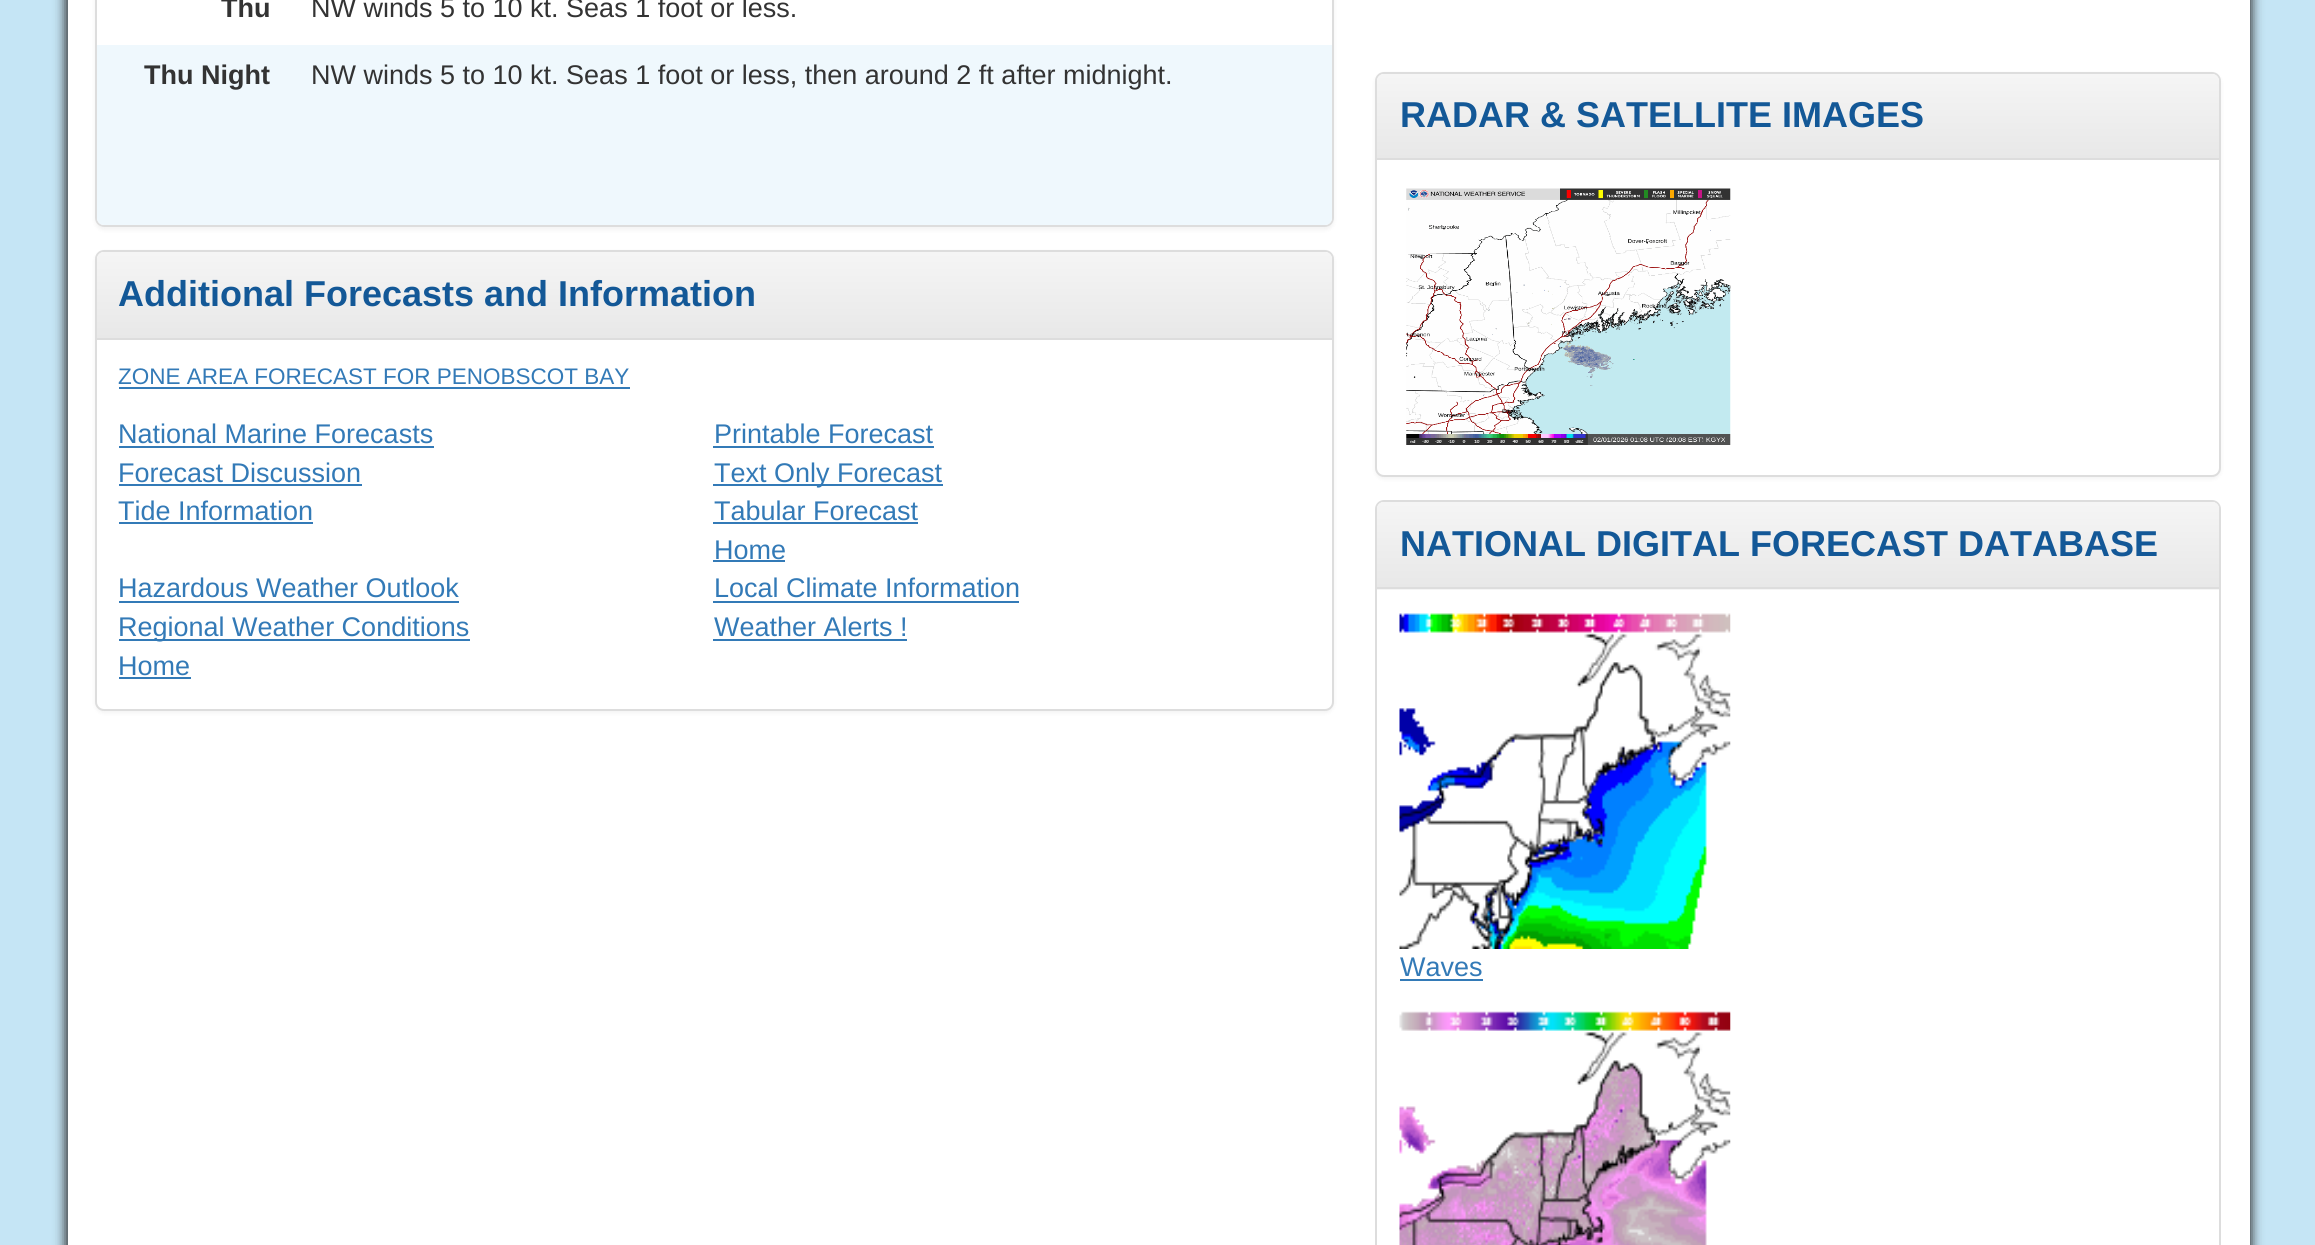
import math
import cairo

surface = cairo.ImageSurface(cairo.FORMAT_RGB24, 2315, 1245)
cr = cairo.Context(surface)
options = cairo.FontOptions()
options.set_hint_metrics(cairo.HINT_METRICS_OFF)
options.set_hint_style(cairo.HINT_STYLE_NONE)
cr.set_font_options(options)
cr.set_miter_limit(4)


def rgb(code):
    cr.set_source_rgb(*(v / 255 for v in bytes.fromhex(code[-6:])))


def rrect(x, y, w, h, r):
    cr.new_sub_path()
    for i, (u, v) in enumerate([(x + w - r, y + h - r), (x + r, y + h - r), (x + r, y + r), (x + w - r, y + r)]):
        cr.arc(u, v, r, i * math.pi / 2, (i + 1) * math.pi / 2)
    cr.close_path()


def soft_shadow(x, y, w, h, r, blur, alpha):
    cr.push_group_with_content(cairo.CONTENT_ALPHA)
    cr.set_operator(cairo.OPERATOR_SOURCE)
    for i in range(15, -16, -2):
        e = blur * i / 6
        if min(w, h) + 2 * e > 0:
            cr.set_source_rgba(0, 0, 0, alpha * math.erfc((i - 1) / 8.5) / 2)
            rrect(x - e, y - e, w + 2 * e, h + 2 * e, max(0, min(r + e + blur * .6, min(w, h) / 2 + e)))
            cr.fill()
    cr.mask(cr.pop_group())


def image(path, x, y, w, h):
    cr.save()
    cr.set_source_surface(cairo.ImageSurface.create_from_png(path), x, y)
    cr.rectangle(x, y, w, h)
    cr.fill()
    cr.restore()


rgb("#c5e5f5")
cr.paint()
rgb("#333333")
soft_shadow(65, -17, 2187, 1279, 0, 5.5, 1)
rgb("#ffffff")
cr.rectangle(68, 0, 2182, 1245)
cr.fill()
cr.save()
cr.set_fill_rule(cairo.FILL_RULE_EVEN_ODD)
cr.new_path()
cr.move_to(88, 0)
cr.line_to(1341, 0)
cr.line_to(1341, 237)
cr.line_to(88, 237)
cr.close_path()
cr.move_to(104, -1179)
cr.line_to(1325, -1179)
cr.curve_to(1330, -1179, 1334, -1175, 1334, -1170)
cr.line_to(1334, 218)
cr.curve_to(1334, 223, 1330, 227, 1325, 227)
cr.line_to(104, 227)
cr.curve_to(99, 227, 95, 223, 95, 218)
cr.line_to(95, -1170)
cr.curve_to(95, -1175, 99, -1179, 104, -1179)
cr.close_path()
cr.clip()
rgb("#000000")
soft_shadow(95, -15, 1239, 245, 9, 2, 0.05)
cr.restore()
rrect(96, -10, 1237, 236, 8)
rgb("#dddddd")
cr.stroke()
rgb("#eff8fd")
cr.new_path()
cr.move_to(97, 45)
cr.line_to(1332, 45)
cr.line_to(1332, 218)
cr.curve_to(1332, 222, 1329, 225, 1325, 225)
cr.line_to(104, 225)
cr.curve_to(100, 225, 97, 222, 97, 218)
cr.close_path()
cr.fill()
rgb("#000000")
soft_shadow(95, 252, 1239, 461, 9, 2, 0.05)
rgb("#ffffff")
rrect(96, 251, 1237, 459, 8)
cr.fill_preserve()
rgb("#dddddd")
cr.stroke()
gradient = cairo.LinearGradient(714, 252, 714, 338)
gradient.add_color_stop_rgba(0, 0.961, 0.961, 0.961, 1)
gradient.add_color_stop_rgba(1, 0.91, 0.91, 0.91, 1)
cr.set_source(gradient)
cr.new_path()
cr.move_to(104, 252)
cr.line_to(1325, 252)
cr.curve_to(1329, 252, 1332, 255, 1332, 259)
cr.line_to(1332, 338)
cr.line_to(97, 338)
cr.line_to(97, 259)
cr.curve_to(97, 255, 100, 252, 104, 252)
cr.close_path()
cr.fill()
for x, y, w, h, color in [
    (97, 338, 1235, 2, "#dddddd"),
    (119, 387, 511, 2, "#337ab7"),
    (119, 446, 315, 2, "#337ab7"),
    (119, 484, 243, 2, "#337ab7"),
    (119, 522, 194, 2, "#337ab7"),
    (713, 446, 221, 2, "#337ab7"),
    (713, 484, 230, 2, "#337ab7"),
    (713, 522, 205, 2, "#337ab7"),
    (713, 560, 72, 2, "#337ab7"),
    (119, 601, 340, 2, "#337ab7"),
    (119, 639, 351, 2, "#337ab7"),
    (713, 601, 306, 2, "#337ab7"),
    (713, 639, 194, 2, "#337ab7"),
    (119, 677, 72, 2, "#337ab7"),
]:
    rgb(color)
    cr.rectangle(x, y, w, h)
    cr.fill()
rgb("#000000")
soft_shadow(1375, 74, 846, 405, 9, 2, 0.05)
rgb("#ffffff")
rrect(1376, 73, 844, 403, 8)
cr.fill_preserve()
rgb("#dddddd")
cr.stroke()
gradient = cairo.LinearGradient(1798, 74, 1798, 158)
gradient.add_color_stop_rgba(0, 0.961, 0.961, 0.961, 1)
gradient.add_color_stop_rgba(1, 0.91, 0.91, 0.91, 1)
cr.set_source(gradient)
cr.new_path()
cr.move_to(1384, 74)
cr.line_to(2212, 74)
cr.curve_to(2216, 74, 2219, 77, 2219, 81)
cr.line_to(2219, 158)
cr.line_to(1377, 158)
cr.line_to(1377, 81)
cr.curve_to(1377, 77, 1380, 74, 1384, 74)
cr.close_path()
cr.fill()
rgb("#dddddd")
cr.rectangle(1377, 158, 842, 2)
cr.fill()
image("img/1.png", 1406, 188, 325, 257)
rrect(1376, 501, 844, 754, 8)
cr.stroke()
rgb("#f5f5f5")
cr.new_path()
cr.move_to(1384, 502)
cr.line_to(2212, 502)
cr.curve_to(2216, 502, 2219, 505, 2219, 509)
cr.line_to(2219, 590)
cr.line_to(1377, 590)
cr.line_to(1377, 509)
cr.curve_to(1377, 505, 1380, 502, 1384, 502)
cr.close_path()
cr.fill()
gradient = cairo.LinearGradient(1798, 502, 1798, 587)
gradient.add_color_stop_rgba(0, 0.961, 0.961, 0.961, 1)
gradient.add_color_stop_rgba(1, 0.91, 0.91, 0.91, 1)
cr.set_source(gradient)
cr.new_path()
cr.move_to(1384, 502)
cr.line_to(2212, 502)
cr.curve_to(2216, 502, 2219, 505, 2219, 509)
cr.line_to(2219, 587)
cr.line_to(1377, 587)
cr.line_to(1377, 509)
cr.curve_to(1377, 505, 1380, 502, 1384, 502)
cr.close_path()
cr.fill()
rgb("#dddddd")
cr.rectangle(1377, 587, 842, 2)
cr.fill()
image("img/2.png", 1399, 613, 332, 336)
rgb("#337ab7")
cr.rectangle(1400, 979, 83, 2)
cr.fill()
image("img/3.png", 1399, 1011, 332, 234)
cr.select_font_face("Liberation Sans", cairo.FONT_SLANT_NORMAL, cairo.FONT_WEIGHT_BOLD)
cr.set_font_size(27)
rgb("#333333")
cr.move_to(221, 17)
cr.show_text("Thu")
cr.select_font_face("Liberation Sans")
cr.move_to(311, 17)
cr.show_text("NW winds 5 to 10 kt. Seas 1 foot or less.")
cr.select_font_face("Liberation Sans", cairo.FONT_SLANT_NORMAL, cairo.FONT_WEIGHT_BOLD)
cr.move_to(144, 84)
cr.show_text("Thu Night")
cr.select_font_face("Liberation Sans")
cr.move_to(311, 84)
cr.show_text("NW winds 5 to 10 kt. Seas 1 foot or less, then around 2 ft after midnight.")
cr.select_font_face("Liberation Sans", cairo.FONT_SLANT_NORMAL, cairo.FONT_WEIGHT_BOLD)
cr.set_font_size(36)
rgb("#135897")
cr.move_to(118, 306)
cr.show_text("Additional Forecasts and Information")
cr.select_font_face("Liberation Sans")
cr.set_font_size(22.5)
rgb("#337ab7")
cr.move_to(118, 384)
cr.show_text("ZONE AREA FORECAST FOR PENOBSCOT BAY")
cr.set_font_size(27)
for x, y, s in [
    (118, 443, "National Marine Forecasts"),
    (118, 482, "Forecast Discussion"),
    (118, 520, "Tide Information"),
    (714, 443, "Printable Forecast"),
    (714, 482, "Text Only Forecast"),
    (714, 520, "Tabular Forecast"),
    (714, 559, "Home"),
    (118, 597, "Hazardous Weather Outlook"),
    (118, 636, "Regional Weather Conditions"),
    (714, 597, "Local Climate Information"),
    (714, 636, "Weather Alerts !"),
    (118, 675, "Home"),
]:
    cr.move_to(x, y)
    cr.show_text(s)
cr.select_font_face("Liberation Sans", cairo.FONT_SLANT_NORMAL, cairo.FONT_WEIGHT_BOLD)
cr.set_font_size(36)
rgb("#135897")
cr.move_to(1400, 127)
cr.show_text("RADAR & SATELLITE IMAGES")
cr.move_to(1400, 556)
cr.show_text("NATIONAL DIGITAL FORECAST DATABASE")
cr.select_font_face("Liberation Sans")
cr.set_font_size(27)
rgb("#337ab7")
cr.move_to(1400, 976)
cr.show_text("Waves")
surface.write_to_png("page.png")
